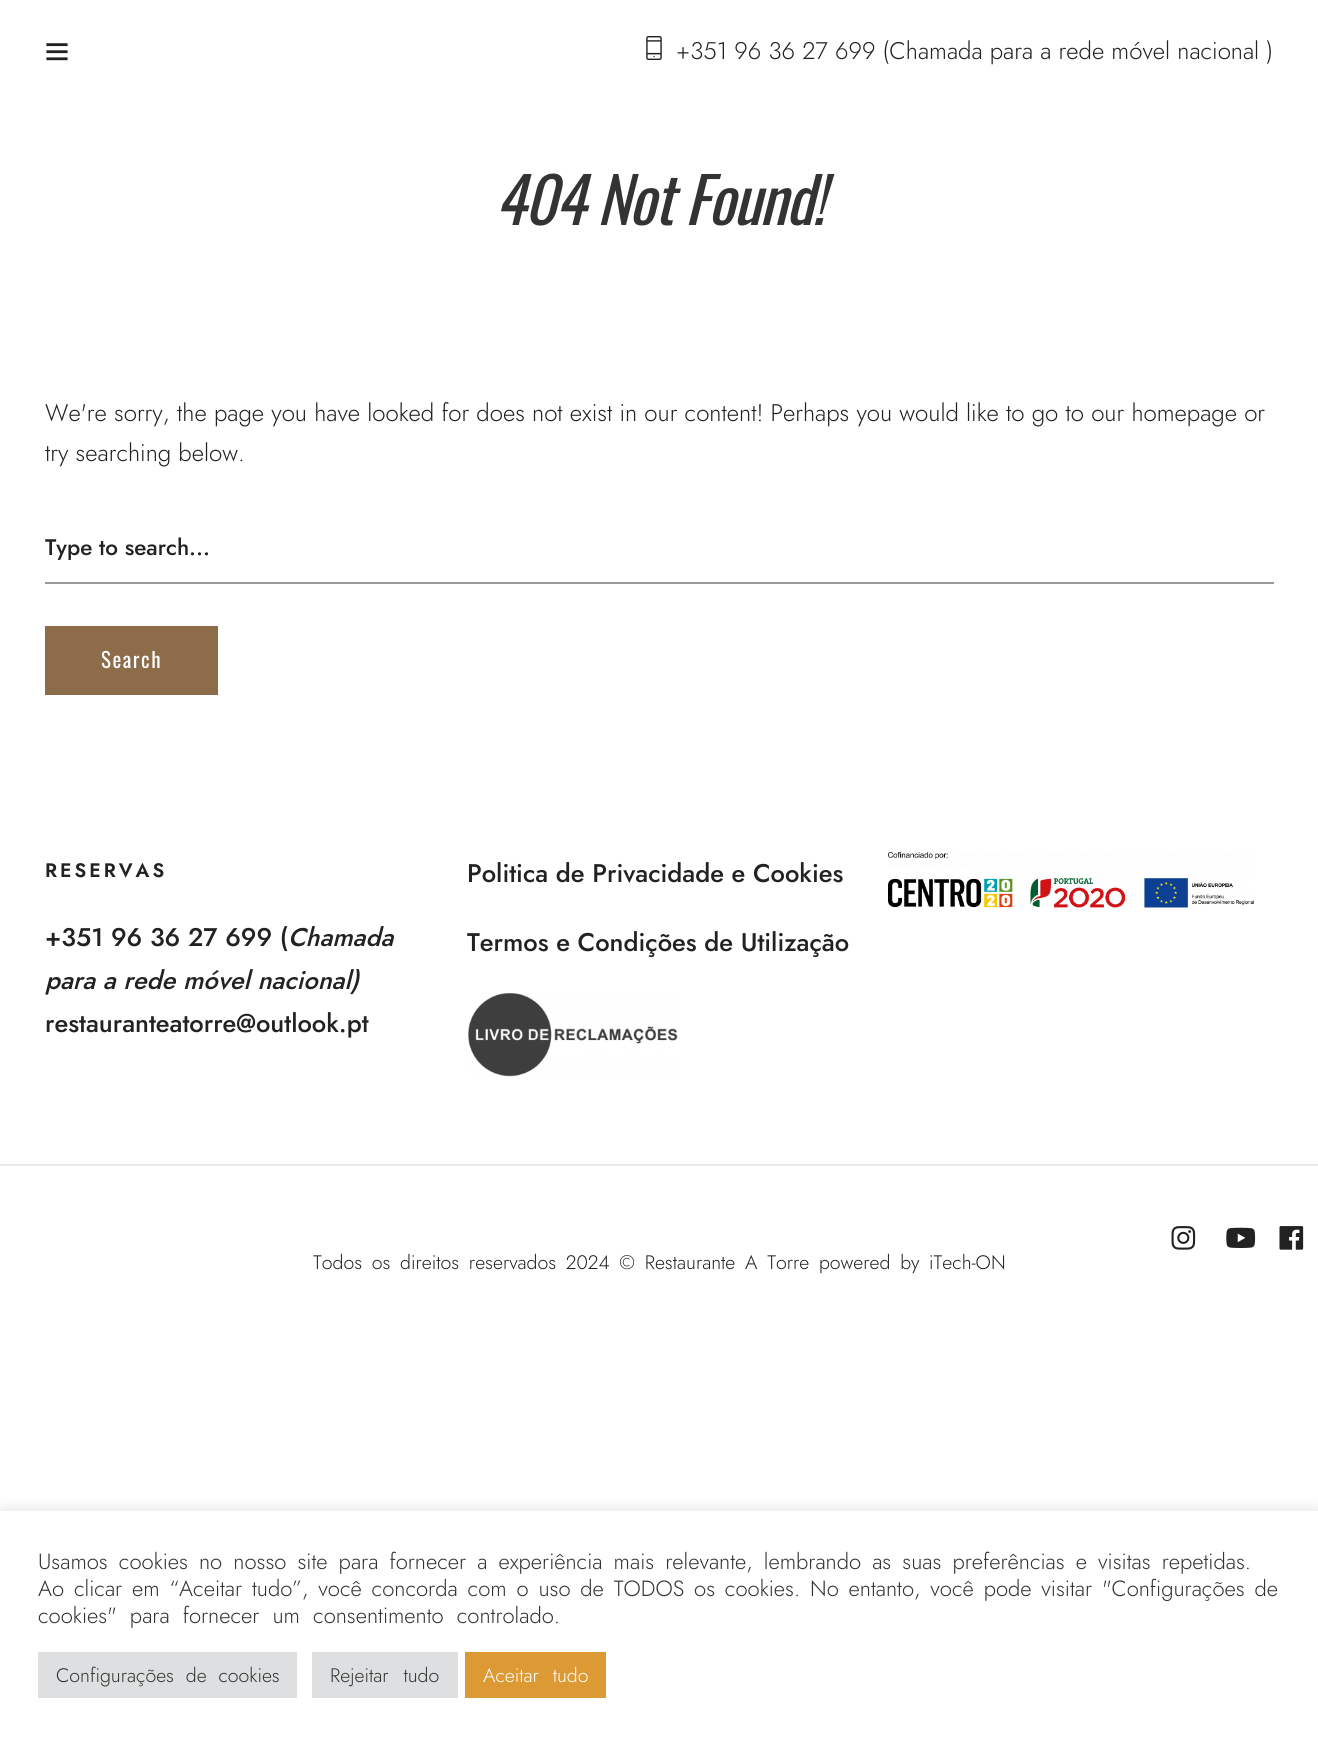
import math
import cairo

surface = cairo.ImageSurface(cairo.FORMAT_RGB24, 1318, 1742)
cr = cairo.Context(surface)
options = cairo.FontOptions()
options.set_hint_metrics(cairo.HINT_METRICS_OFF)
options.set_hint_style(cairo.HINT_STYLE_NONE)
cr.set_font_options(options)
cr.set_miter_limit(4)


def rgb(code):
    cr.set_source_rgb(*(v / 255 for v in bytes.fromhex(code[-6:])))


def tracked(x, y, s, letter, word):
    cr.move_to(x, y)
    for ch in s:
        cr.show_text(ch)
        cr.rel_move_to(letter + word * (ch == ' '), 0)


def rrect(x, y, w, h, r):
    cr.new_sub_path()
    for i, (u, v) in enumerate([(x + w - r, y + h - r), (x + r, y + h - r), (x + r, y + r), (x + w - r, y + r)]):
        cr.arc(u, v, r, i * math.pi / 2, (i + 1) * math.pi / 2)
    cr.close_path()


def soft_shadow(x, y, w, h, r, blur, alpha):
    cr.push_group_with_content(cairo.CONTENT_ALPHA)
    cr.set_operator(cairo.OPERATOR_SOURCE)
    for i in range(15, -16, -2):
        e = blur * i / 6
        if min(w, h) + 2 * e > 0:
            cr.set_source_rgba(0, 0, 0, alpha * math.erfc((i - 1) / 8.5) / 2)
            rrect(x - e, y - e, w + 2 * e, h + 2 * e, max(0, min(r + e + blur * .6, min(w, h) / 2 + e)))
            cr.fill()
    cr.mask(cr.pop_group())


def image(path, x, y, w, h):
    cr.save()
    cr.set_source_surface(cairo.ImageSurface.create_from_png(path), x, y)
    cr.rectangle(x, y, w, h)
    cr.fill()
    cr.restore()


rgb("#ffffff")
cr.paint()
image("img/1.png", 46, 43, 22, 18)
image("img/2.png", 646, 36, 16, 24)
rgb("#999999")
cr.rectangle(45, 582, 1229, 2)
cr.fill()
rgb("#8d6c4a")
cr.rectangle(45, 626, 173, 69)
cr.fill()
image("img/3.png", 468, 993, 210, 84)
image("img/4.png", 888, 852, 366, 56)
rgb("#ebebeb")
cr.rectangle(0, 1164, 1318, 2)
cr.fill()
image("img/5.png", 1171, 1226, 25, 24)
image("img/6.png", 1226, 1227, 30, 21)
image("img/7.png", 1279, 1226, 25, 24)
rgb("#acabab")
soft_shadow(0, 1509, 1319, 233, 0, 7.5, 0.3)
for x, y, w, h, color in [
    (0, 1511, 1318, 231, "#ffffff"),
    (38, 1652, 259, 46, "#dedfe0"),
    (312, 1652, 146, 46, "#dedfe0"),
    (465, 1652, 141, 46, "#dd9933"),
]:
    rgb(color)
    cr.rectangle(x, y, w, h)
    cr.fill()
cr.select_font_face("Jost Light")
cr.set_font_size(24)
rgb("#222222")
cr.move_to(676, 59)
cr.show_text("+351 96 36 27 699 (Chamada para a rede móvel nacional )")
cr.select_font_face("Oswald", cairo.FONT_SLANT_ITALIC)
cr.set_font_size(63)
rgb("#333333")
tracked(495, 225, "404 Not Found!", -1.5, 0)
cr.select_font_face("Jost Light")
cr.set_font_size(24)
rgb("#222222")
cr.move_to(45, 421)
cr.show_text("We're sorry, the page you have looked for does not exist in our content! Perhaps you would like to go to our homepage or")
cr.move_to(45, 461)
cr.show_text("try searching below.")
cr.select_font_face("Jost Medium")
cr.set_font_size(22.5)
cr.move_to(45, 555)
cr.show_text("Type to search...")
cr.select_font_face("Oswald")
cr.set_font_size(21)
rgb("#ffffff")
tracked(101, 668, "Search", 1.5, 0)
cr.select_font_face("Jost SemiBold")
cr.set_font_size(19.5)
rgb("#222222")
tracked(45, 877, "RESERVAS", 3, 0)
cr.select_font_face("Jost Medium")
cr.set_font_size(25.5)
cr.move_to(45, 946)
cr.show_text("+351 96 36 27 699 (")
cr.select_font_face("Jost Medium", cairo.FONT_SLANT_ITALIC)
cr.move_to(288, 946)
cr.show_text("Chamada")
cr.move_to(45, 989)
cr.show_text("para a rede móvel nacional)")
cr.select_font_face("Jost Medium")
for x, y, s in [
    (45, 1032, "restauranteatorre@outlook.pt"),
    (467, 882, "Politica de Privacidade e Cookies"),
    (467, 951, "Termos e Condições de Utilização"),
]:
    cr.move_to(x, y)
    cr.show_text(s)
cr.select_font_face("Jost Light")
cr.set_font_size(19.5)
tracked(313, 1269, "Todos os direitos reservados 2024 © Restaurante A Torre powered by", 0, 3.9)
cr.move_to(929, 1269)
cr.show_text("iTech-ON")
cr.set_font_size(22)
rgb("#333333")
tracked(38, 1569, "Usamos cookies no nosso site para fornecer a experiência mais relevante, lembrando as suas preferências e visitas repetidas.", 0, 4.5)
tracked(38, 1596, "Ao clicar em “Aceitar tudo”, você concorda com o uso de TODOS os cookies. No entanto, você pode visitar \"Configurações de", 0, 3.25)
tracked(38, 1623, "cookies\" para fornecer um consentimento controlado.", 0, 6.5)
cr.set_font_size(19.5)
tracked(56, 1682, "Configurações de cookies", 0, 6)
tracked(330, 1682, "Rejeitar tudo", 0, 9)
rgb("#ffffff")
tracked(483, 1682, "Aceitar tudo", 0, 8)
surface.write_to_png("page.png")
